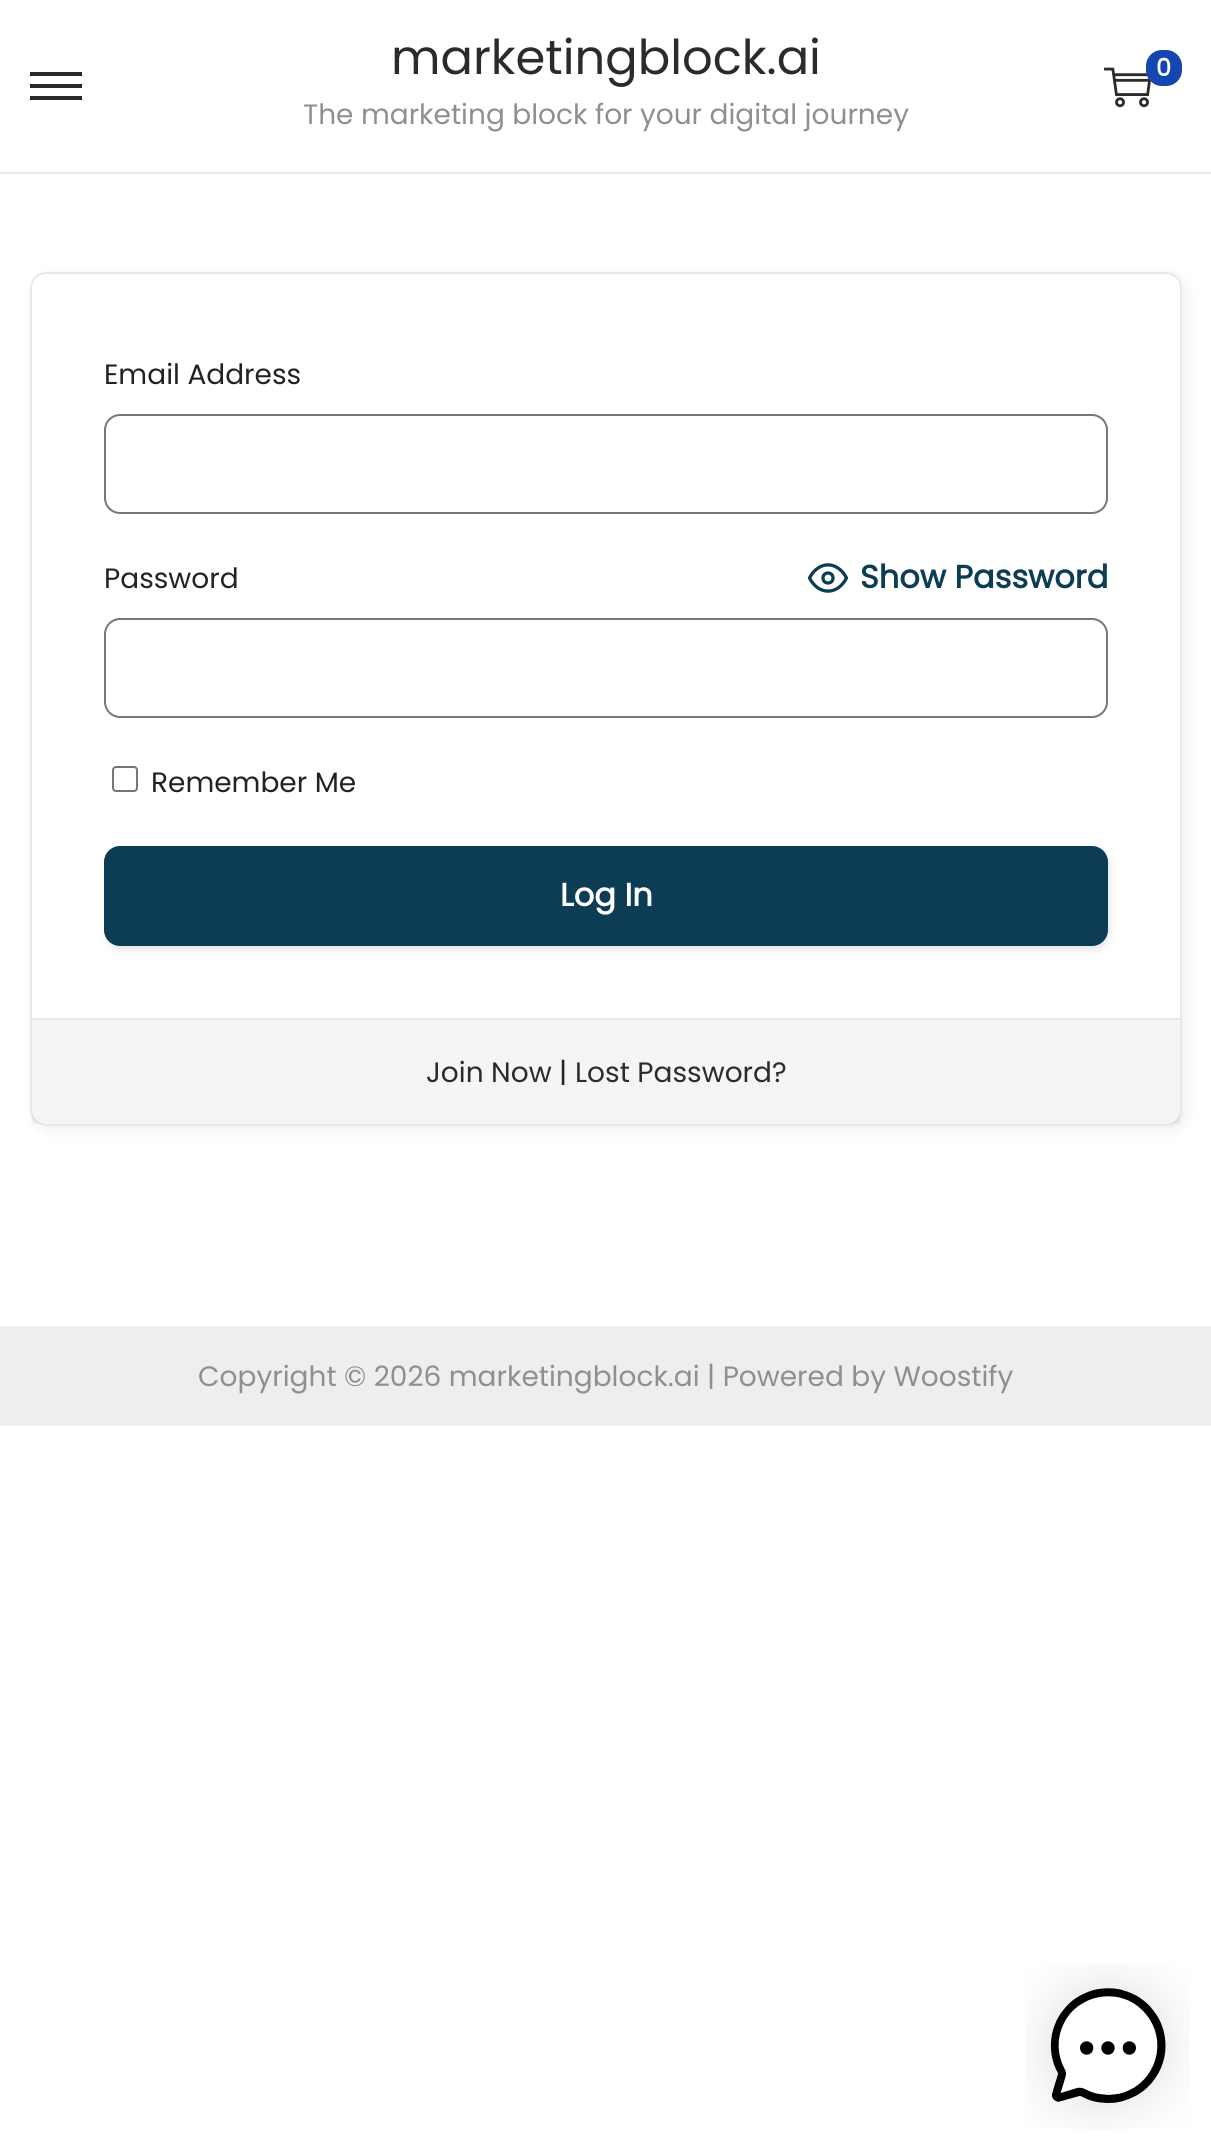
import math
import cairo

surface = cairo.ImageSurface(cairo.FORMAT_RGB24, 1211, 2151)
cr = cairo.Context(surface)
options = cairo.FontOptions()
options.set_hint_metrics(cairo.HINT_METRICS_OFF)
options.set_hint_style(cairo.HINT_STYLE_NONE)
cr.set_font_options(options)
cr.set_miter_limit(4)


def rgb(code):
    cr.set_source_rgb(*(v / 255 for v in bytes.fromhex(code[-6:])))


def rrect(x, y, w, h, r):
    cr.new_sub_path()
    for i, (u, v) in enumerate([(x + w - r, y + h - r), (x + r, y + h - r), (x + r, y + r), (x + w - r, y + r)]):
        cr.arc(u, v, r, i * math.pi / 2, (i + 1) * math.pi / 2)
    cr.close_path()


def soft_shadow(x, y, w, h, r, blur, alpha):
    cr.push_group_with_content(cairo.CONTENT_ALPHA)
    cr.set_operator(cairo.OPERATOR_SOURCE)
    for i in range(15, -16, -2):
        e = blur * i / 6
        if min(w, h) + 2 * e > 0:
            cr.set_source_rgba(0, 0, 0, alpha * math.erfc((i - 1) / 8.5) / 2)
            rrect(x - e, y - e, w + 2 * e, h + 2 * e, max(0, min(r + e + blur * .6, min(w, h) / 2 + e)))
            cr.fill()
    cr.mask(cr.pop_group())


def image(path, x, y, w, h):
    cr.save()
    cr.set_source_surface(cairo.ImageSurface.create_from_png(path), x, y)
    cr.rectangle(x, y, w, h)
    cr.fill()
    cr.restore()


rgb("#ffffff")
cr.paint()
rgb("#eaeaea")
cr.rectangle(0, 172, 1211, 2)
cr.fill()
image("img/1.png", 1104, 67, 47, 41)
rgb("#1346af")
rrect(1146, 50, 36, 36, 16)
cr.fill()
for x, y, w, h, color in [
    (30, 84, 52, 4, "#2b2b2b"),
    (30, 72, 52, 4, "#2b2b2b"),
    (30, 96, 52, 4, "#2b2b2b"),
]:
    rgb(color)
    cr.rectangle(x, y, w, h)
    cr.fill()
rgb("#000000")
soft_shadow(34, 276, 1152, 854, 16, 7, 0.07)
rgb("#ffffff")
rrect(31, 273, 1150, 852, 15)
cr.fill_preserve()
rgb("#e8e8e8")
cr.stroke()
rrect(105, 415, 1002, 98, 15)
rgb("#777777")
cr.stroke()
cr.new_path()
cr.move_to(809.5, 578)
cr.curve_to(818.5, 560.5, 837.5, 560.5, 846.5, 578)
cr.curve_to(837.5, 595.5, 818.5, 595.5, 809.5, 578)
cr.close_path()
rgb("#0c3d54")
cr.set_line_width(3.3)
cr.set_line_cap(cairo.LINE_CAP_ROUND)
cr.set_line_join(cairo.LINE_JOIN_ROUND)
cr.stroke()
cr.arc(828, 578, 5, 0, 2 * math.pi)
cr.set_line_cap(cairo.LINE_CAP_BUTT)
cr.set_line_join(cairo.LINE_JOIN_MITER)
cr.stroke()
rrect(105, 619, 1002, 98, 15)
rgb("#777777")
cr.set_line_width(2)
cr.stroke()
rrect(113, 767, 24, 24, 3)
rgb("#767676")
cr.stroke()
rgb("#000000")
soft_shadow(106, 850, 1004, 100, 16, 4, 0.1)
rgb("#0c3d54")
rrect(105, 847, 1002, 98, 15)
cr.fill_preserve()
cr.stroke()
cr.set_source_rgba(0, 0, 0, 0.04)
cr.rectangle(32, 1020, 1148, 104)
cr.fill()
rgb("#e8e8e8")
cr.rectangle(32, 1018, 1148, 2)
cr.fill()
rgb("#eeeeec")
cr.rectangle(0, 1326, 1211, 100)
cr.fill()
image("img/2.png", 1025, 1964, 165, 165)
cr.select_font_face("Poppins")
cr.set_font_size(48)
rgb("#2b2b2b")
cr.move_to(391, 74)
cr.show_text("marketingblock.ai")
cr.set_font_size(28)
rgb("#8f8f8f")
cr.move_to(303, 124)
cr.show_text("The marketing block for your digital journey")
cr.select_font_face("Poppins", cairo.FONT_SLANT_NORMAL, cairo.FONT_WEIGHT_BOLD)
cr.set_font_size(24)
rgb("#ffffff")
cr.move_to(1156, 76)
cr.show_text("0")
cr.select_font_face("Poppins")
cr.set_font_size(28)
rgb("#222222")
cr.move_to(104, 384)
cr.show_text("Email Address")
cr.move_to(104, 588)
cr.show_text("Password")
cr.select_font_face("Poppins", cairo.FONT_SLANT_NORMAL, cairo.FONT_WEIGHT_BOLD)
cr.set_font_size(32)
rgb("#0c3d54")
cr.move_to(860, 588)
cr.show_text("Show Password")
cr.select_font_face("Poppins")
cr.set_font_size(28)
rgb("#222222")
cr.move_to(151, 792)
cr.show_text("Remember Me")
cr.select_font_face("Poppins", cairo.FONT_SLANT_NORMAL, cairo.FONT_WEIGHT_BOLD)
cr.set_font_size(32)
rgb("#ffffff")
cr.move_to(560, 906)
cr.show_text("Log In")
cr.select_font_face("Poppins")
cr.set_font_size(28)
rgb("#2b2b2b")
cr.move_to(426, 1082)
cr.show_text("Join Now")
rgb("#222222")
cr.move_to(559, 1082)
cr.show_text("|")
rgb("#2b2b2b")
cr.move_to(575, 1082)
cr.show_text("Lost Password?")
rgb("#8f8f8f")
cr.move_to(198, 1386)
cr.show_text("Copyright © 2026 marketingblock.ai | Powered by Woostify")
surface.write_to_png("page.png")
